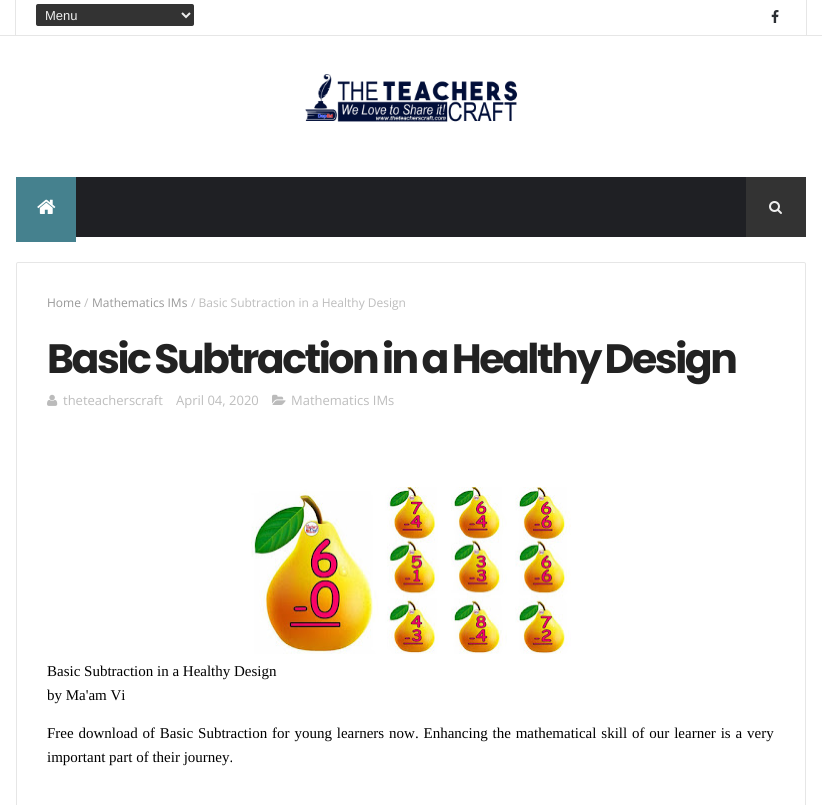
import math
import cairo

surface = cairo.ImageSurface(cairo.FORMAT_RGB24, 822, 805)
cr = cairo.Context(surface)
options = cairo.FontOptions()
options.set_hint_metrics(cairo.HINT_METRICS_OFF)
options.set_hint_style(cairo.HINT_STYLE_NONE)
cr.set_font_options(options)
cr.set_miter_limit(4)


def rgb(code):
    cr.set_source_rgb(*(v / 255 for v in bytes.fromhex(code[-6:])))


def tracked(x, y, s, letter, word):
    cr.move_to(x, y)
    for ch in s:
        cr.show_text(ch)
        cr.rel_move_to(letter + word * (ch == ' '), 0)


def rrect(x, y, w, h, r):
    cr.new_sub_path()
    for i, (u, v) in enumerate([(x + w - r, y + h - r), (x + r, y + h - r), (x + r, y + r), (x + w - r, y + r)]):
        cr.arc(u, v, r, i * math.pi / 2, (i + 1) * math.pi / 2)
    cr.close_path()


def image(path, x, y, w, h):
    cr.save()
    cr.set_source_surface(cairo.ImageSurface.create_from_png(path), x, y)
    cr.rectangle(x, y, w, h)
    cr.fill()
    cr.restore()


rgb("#ffffff")
cr.paint()
for x, y, w, h, color in [
    (0, 35, 822, 1, "#e6e6e6"),
    (806, 0, 1, 35, "#e6e6e6"),
    (15, 0, 1, 35, "#e6e6e6"),
]:
    rgb(color)
    cr.rectangle(x, y, w, h)
    cr.fill()
rgb("#333333")
rrect(36, 4, 158, 22, 2)
cr.fill()
cr.new_path()
cr.move_to(182, 13)
cr.line_to(186, 17)
cr.line_to(190, 13)
rgb("#eeeeee")
cr.stroke()
image("img/1.png", 771, 10, 8, 13)
image("img/2.png", 305, 74, 213, 48)
rgb("#1f2024")
cr.rectangle(76, 177, 670, 60)
cr.fill()
rgb("#45818e")
cr.rectangle(16, 177, 60, 65)
cr.fill()
image("img/3.png", 37, 199, 19, 15)
rgb("#333333")
cr.rectangle(746, 177, 60, 60)
cr.fill()
image("img/4.png", 769, 201, 13, 13)
rrect(16.5, 262.5, 789, 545, 1.5)
rgb("#e6e6e6")
cr.set_line_width(1)
cr.stroke()
image("img/5.png", 47, 394, 11, 12)
image("img/6.png", 272, 394, 14, 11)
image("img/7.png", 251, 487, 320, 167)
cr.select_font_face("Liberation Sans")
cr.set_font_size(13)
rgb("#eeeeee")
cr.move_to(45, 20)
cr.show_text("Menu")
cr.select_font_face("Open Sans")
cr.set_font_size(12)
rgb("#999999")
cr.move_to(47, 307)
cr.show_text("Home")
rgb("#bdbdbd")
cr.move_to(84, 307)
cr.show_text("/")
rgb("#999999")
cr.move_to(92, 307)
cr.show_text("Mathematics IMs")
rgb("#bdbdbd")
cr.move_to(191, 307)
cr.show_text("/ Basic Subtraction in a Healthy Design")
cr.select_font_face("Poppins", cairo.FONT_SLANT_NORMAL, cairo.FONT_WEIGHT_BOLD)
cr.set_font_size(41)
rgb("#222222")
tracked(47, 373, "Basic Subtraction in a Healthy Design", -2.45, -1.5)
cr.select_font_face("Open Sans")
cr.set_font_size(13)
rgb("#bdbdbd")
for x, y, s in [
    (63, 405, "theteacherscraft"),
    (176, 405, "April 04, 2020"),
    (291, 405, "Mathematics IMs"),
]:
    cr.move_to(x, y)
    cr.show_text(s)
cr.select_font_face("Liberation Serif")
cr.set_font_size(15)
rgb("#000000")
cr.move_to(47, 676)
cr.show_text("Basic Subtraction in a Healthy Design")
cr.move_to(47, 700)
cr.show_text("by Ma'am Vi")
tracked(47, 738, "Free download of Basic Subtraction for young learners now. Enhancing the mathematical skill of our learner is a very", 0, 1.1)
cr.move_to(47, 762)
cr.show_text("important part of their journey.")
surface.write_to_png("page.png")
